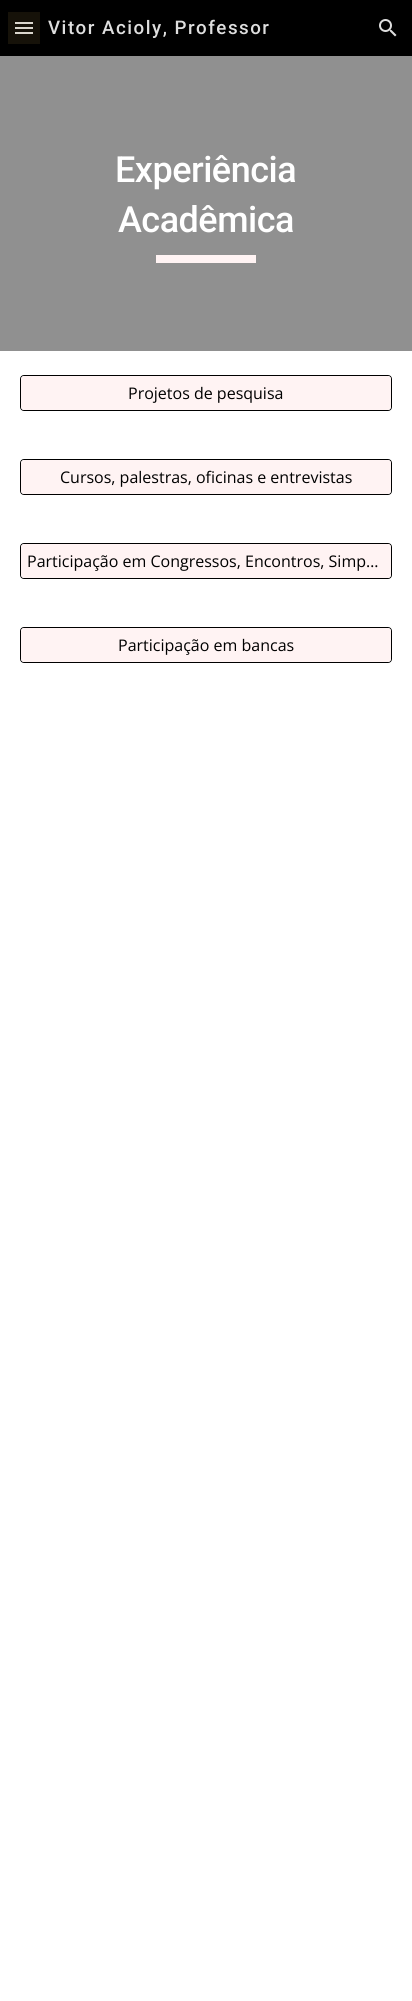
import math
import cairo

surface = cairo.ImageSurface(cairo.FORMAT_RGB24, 412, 2001)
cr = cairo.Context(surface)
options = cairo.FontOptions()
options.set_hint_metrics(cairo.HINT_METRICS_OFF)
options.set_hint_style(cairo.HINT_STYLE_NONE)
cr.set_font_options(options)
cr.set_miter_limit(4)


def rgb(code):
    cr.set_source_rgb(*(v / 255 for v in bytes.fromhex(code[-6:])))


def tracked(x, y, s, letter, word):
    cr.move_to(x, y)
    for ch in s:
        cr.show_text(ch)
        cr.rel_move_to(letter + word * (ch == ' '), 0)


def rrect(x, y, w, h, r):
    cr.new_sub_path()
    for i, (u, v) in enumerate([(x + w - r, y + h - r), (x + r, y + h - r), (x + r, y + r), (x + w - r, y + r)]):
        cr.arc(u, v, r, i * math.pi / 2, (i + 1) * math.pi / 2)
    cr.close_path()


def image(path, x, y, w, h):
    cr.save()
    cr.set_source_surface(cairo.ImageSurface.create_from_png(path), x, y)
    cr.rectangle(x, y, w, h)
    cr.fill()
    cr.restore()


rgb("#ffffff")
cr.paint()
rgb("#000000")
cr.rectangle(0, 0, 412, 56)
cr.fill()
rgb("#dedede")
cr.rectangle(15, 22, 18, 2)
cr.rectangle(15, 27, 18, 2)
cr.rectangle(15, 32, 18, 2)
cr.fill()
cr.set_source_rgba(0.718, 0.6, 0.318, 0.12)
cr.rectangle(8, 12, 32, 32)
cr.fill()
image("img/1.png", 379, 19, 18, 18)
rgb("#909090")
cr.rectangle(0, 56, 412, 295)
cr.fill()
rgb("#fff3f3")
cr.rectangle(156, 255, 100, 8)
cr.fill()
rrect(20.5, 375.5, 371, 35, 3.5)
rgb("#000000")
cr.set_line_width(1)
cr.stroke()
rgb("#fff3f3")
rrect(21, 376, 370, 34, 3)
cr.fill()
rrect(20.5, 459.5, 371, 35, 3.5)
rgb("#000000")
cr.stroke()
rgb("#fff3f3")
rrect(21, 460, 370, 34, 3)
cr.fill()
rrect(20.5, 543.5, 371, 35, 3.5)
rgb("#000000")
cr.stroke()
rgb("#fff3f3")
rrect(21, 544, 370, 34, 3)
cr.fill()
rrect(20.5, 627.5, 371, 35, 3.5)
rgb("#000000")
cr.stroke()
rgb("#fff3f3")
rrect(21, 628, 370, 34, 3)
cr.fill()
cr.select_font_face("Roboto Medium")
cr.set_font_size(18.75)
rgb("#dedede")
tracked(48, 34, "Vitor Acioly, Professor", 1.5, 0)
cr.set_font_size(36)
rgb("#ffffff")
tracked(115, 182, "Experiência", -0.5, 0)
tracked(118, 232, "Acadêmica", -0.5, 0)
cr.select_font_face("Open Sans")
cr.set_font_size(16)
rgb("#000000")
for x, y, s in [
    (128, 399, "Projetos de pesquisa"),
    (60, 483, "Cursos, palestras, oficinas e entrevistas"),
    (27, 567, "Participação em Congressos, Encontros, Simp…"),
    (118, 651, "Participação em bancas"),
]:
    cr.move_to(x, y)
    cr.show_text(s)
surface.write_to_png("page.png")
